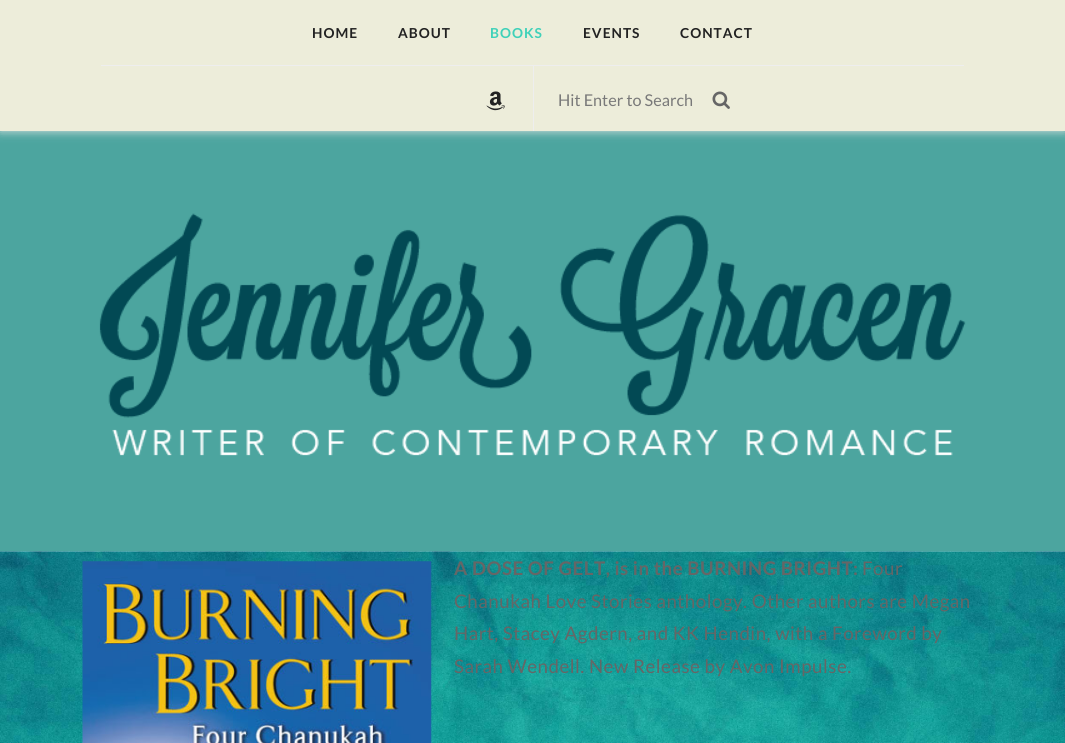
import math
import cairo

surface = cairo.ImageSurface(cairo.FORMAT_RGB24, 1065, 743)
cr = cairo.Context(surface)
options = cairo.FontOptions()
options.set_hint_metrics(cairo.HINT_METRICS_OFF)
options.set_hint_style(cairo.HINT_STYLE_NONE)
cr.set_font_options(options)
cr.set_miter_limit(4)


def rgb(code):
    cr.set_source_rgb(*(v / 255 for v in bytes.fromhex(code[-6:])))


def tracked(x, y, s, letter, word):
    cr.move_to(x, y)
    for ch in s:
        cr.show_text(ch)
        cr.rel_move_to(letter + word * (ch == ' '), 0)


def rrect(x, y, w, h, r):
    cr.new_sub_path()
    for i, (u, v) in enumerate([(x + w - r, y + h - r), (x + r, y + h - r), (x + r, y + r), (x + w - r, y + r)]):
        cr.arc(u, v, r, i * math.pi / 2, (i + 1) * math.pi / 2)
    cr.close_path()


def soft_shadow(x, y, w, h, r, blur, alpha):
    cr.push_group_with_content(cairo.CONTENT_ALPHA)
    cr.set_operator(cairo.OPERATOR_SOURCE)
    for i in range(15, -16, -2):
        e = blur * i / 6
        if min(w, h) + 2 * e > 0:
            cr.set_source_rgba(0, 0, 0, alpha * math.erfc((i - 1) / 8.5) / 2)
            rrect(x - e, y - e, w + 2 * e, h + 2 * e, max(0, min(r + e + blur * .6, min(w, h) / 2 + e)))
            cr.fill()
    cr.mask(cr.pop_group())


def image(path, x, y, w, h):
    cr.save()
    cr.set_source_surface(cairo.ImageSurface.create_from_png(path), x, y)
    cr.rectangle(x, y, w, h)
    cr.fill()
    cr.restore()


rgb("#ffffff")
cr.paint()
rgb("#4ca59f")
cr.rectangle(0, 131, 1065, 420)
cr.fill()
rgb("#e6e6e6")
soft_shadow(0, 0, 1065, 131, 0, 5, 1)
rgb("#ededda")
cr.rectangle(0, 0, 1065, 131)
cr.fill()
rgb("#eeeeee")
cr.rectangle(101, 65, 863, 1)
cr.fill()
image("img/1.png", 486, 91, 19, 20)
cr.rectangle(533, 66, 1, 65)
cr.fill()
image("img/2.png", 712, 91, 18, 18)
image("img/3.png", 99, 213, 867, 243)
image("img/4.png", 0, 551, 1065, 192)
image("img/5.png", 82, 561, 350, 182)
cr.select_font_face("Lato", cairo.FONT_SLANT_NORMAL, cairo.FONT_WEIGHT_BOLD)
cr.set_font_size(13.75)
rgb("#222222")
tracked(312, 38, "HOME", 1, 0)
tracked(398, 38, "ABOUT", 1, 0)
rgb("#40d1b9")
tracked(490, 38, "BOOKS", 1, 0)
rgb("#222222")
tracked(583, 38, "EVENTS", 1, 0)
tracked(680, 38, "CONTACT", 1, 0)
cr.select_font_face("Lato")
cr.set_font_size(16.25)
rgb("#797979")
cr.move_to(558, 106)
cr.show_text("Hit Enter to Search")
cr.select_font_face("Lato", cairo.FONT_SLANT_NORMAL, cairo.FONT_WEIGHT_BOLD)
cr.set_font_size(18.75)
rgb("#666666")
tracked(454, 575, "A DOSE OF GELT, is in the BURNING BRIGHT:", 0.5, 0)
cr.select_font_face("Lato")
for x, y, s in [
    (862, 575, "Four"),
    (454, 608, "Chanukah Love Stories anthology. Other authors are Megan"),
    (454, 640, "Hart, Stacey Agdern, and KK Hendin, with a Foreword by"),
    (454, 673, "Sarah Wendell. New Release by Avon Impulse."),
]:
    tracked(x, y, s, 0.5, 0)
surface.write_to_png("page.png")
